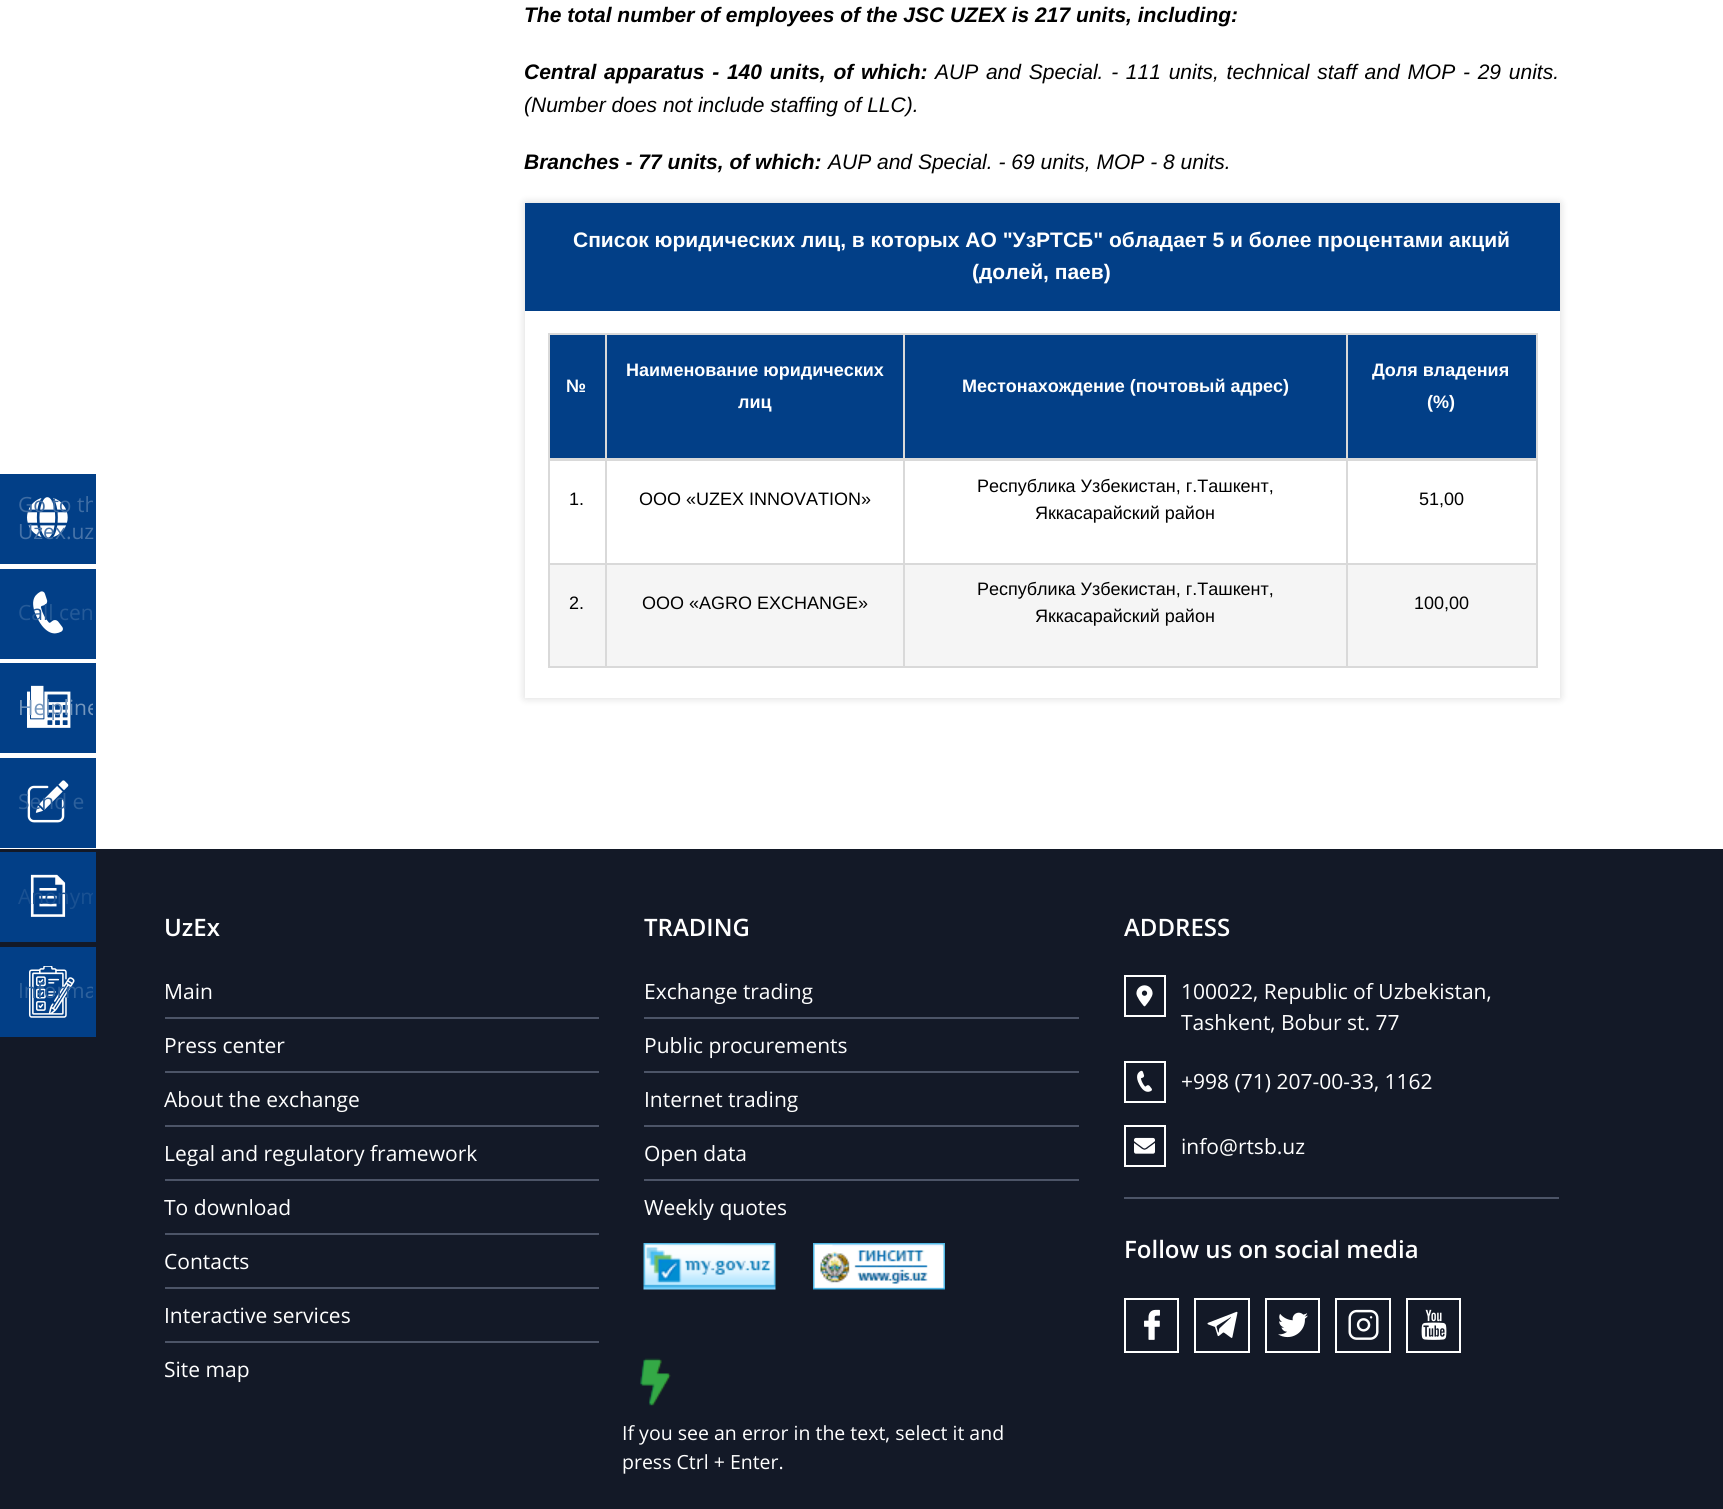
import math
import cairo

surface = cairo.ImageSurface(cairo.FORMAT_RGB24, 1723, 1509)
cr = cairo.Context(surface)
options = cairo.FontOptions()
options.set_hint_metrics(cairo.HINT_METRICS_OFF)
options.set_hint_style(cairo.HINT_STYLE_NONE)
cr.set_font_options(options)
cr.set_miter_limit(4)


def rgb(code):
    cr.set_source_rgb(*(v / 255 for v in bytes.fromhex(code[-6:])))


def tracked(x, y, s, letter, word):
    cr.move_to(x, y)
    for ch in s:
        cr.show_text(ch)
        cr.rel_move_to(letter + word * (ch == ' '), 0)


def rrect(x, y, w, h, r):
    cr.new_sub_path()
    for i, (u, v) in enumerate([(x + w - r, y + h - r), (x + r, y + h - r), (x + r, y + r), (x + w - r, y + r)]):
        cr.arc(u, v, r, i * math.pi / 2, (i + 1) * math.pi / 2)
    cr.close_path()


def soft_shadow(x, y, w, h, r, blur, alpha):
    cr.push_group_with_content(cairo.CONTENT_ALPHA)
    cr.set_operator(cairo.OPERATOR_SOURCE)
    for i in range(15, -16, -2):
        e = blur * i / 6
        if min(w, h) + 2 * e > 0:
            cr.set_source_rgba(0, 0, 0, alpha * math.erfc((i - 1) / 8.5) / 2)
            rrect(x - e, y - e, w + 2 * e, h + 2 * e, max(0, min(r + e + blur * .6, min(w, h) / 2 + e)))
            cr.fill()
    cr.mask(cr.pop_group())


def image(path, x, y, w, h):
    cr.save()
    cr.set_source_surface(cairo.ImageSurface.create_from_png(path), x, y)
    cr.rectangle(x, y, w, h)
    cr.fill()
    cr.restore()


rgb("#ffffff")
cr.paint()
rgb("#000000")
soft_shadow(525, 203, 1035, 495, 0, 4.5, 0.15)
for x, y, w, h, color in [
    (525, 203, 1035, 108, "#023f87"),
    (525, 311, 1035, 387, "#ffffff"),
    (548, 333, 990, 2, "#d9d9d9"),
    (1536, 333, 2, 335, "#d9d9d9"),
    (548, 666, 990, 2, "#d9d9d9"),
    (548, 333, 2, 335, "#d9d9d9"),
    (550, 335, 986, 123, "#023f87"),
    (1346, 563, 192, 2, "#d9d9d9"),
    (550, 565, 986, 101, "#f5f5f5"),
    (1346, 563, 2, 105, "#d9d9d9"),
    (903, 563, 444, 2, "#d9d9d9"),
    (903, 563, 2, 105, "#d9d9d9"),
    (605, 563, 300, 2, "#d9d9d9"),
    (605, 563, 2, 105, "#d9d9d9"),
    (548, 563, 58, 2, "#d9d9d9"),
    (605, 333, 2, 231, "#d9d9d9"),
    (903, 333, 2, 231, "#d9d9d9"),
    (1346, 333, 2, 231, "#d9d9d9"),
    (548, 458, 990, 3, "#d9d9d9"),
    (0, 474, 96, 90, "#023f87"),
]:
    rgb(color)
    cr.rectangle(x, y, w, h)
    cr.fill()
image("img/1.png", 27, 497, 41, 41)
cr.rectangle(0, 569, 96, 90)
cr.fill()
image("img/2.png", 33, 591, 30, 43)
cr.rectangle(0, 663, 96, 90)
cr.fill()
image("img/3.png", 27, 685, 44, 43)
cr.rectangle(0, 758, 96, 90)
cr.fill()
image("img/4.png", 27, 780, 42, 43)
rgb("#131927")
cr.rectangle(0, 849, 1723, 660)
cr.fill()
rgb("#023f87")
cr.rectangle(0, 852, 96, 90)
cr.fill()
image("img/5.png", 30, 874, 36, 43)
cr.rectangle(0, 947, 96, 90)
cr.fill()
image("img/6.png", 28, 966, 47, 52)
for x, y, w, h, color in [
    (165, 1017, 434, 2, "#4c5467"),
    (165, 1071, 434, 2, "#4c5467"),
    (165, 1125, 434, 2, "#4c5467"),
    (165, 1179, 434, 2, "#4c5467"),
    (165, 1233, 434, 2, "#4c5467"),
    (165, 1287, 434, 2, "#4c5467"),
    (165, 1341, 434, 2, "#4c5467"),
    (644, 1017, 435, 2, "#4c5467"),
    (644, 1071, 435, 2, "#4c5467"),
    (644, 1125, 435, 2, "#4c5467"),
    (644, 1179, 435, 2, "#4c5467"),
]:
    rgb(color)
    cr.rectangle(x, y, w, h)
    cr.fill()
image("img/7.png", 643, 1243, 133, 47)
image("img/8.png", 813, 1243, 132, 47)
image("img/9.png", 640, 1358, 31, 48)
cr.rectangle(1124, 1197, 435, 2)
cr.fill()
cr.rectangle(1125, 976, 40, 40)
rgb("#ffffff")
cr.stroke()
image("img/10.png", 1136, 985, 17, 22)
cr.rectangle(1125, 1062, 40, 40)
cr.stroke()
image("img/11.png", 1137, 1070, 15, 22)
cr.rectangle(1125, 1126, 40, 40)
cr.stroke()
image("img/12.png", 1134, 1137, 21, 17)
cr.rectangle(1125, 1299, 53, 53)
cr.stroke()
image("img/13.png", 1144, 1309, 16, 31)
cr.rectangle(1195, 1299, 54, 53)
cr.stroke()
image("img/14.png", 1207, 1311, 31, 27)
cr.rectangle(1266, 1299, 53, 53)
cr.stroke()
image("img/15.png", 1278, 1312, 30, 26)
cr.rectangle(1336, 1299, 54, 53)
cr.stroke()
image("img/16.png", 1348, 1309, 31, 31)
cr.rectangle(1407, 1299, 53, 53)
cr.stroke()
image("img/17.png", 1421, 1309, 26, 31)
cr.select_font_face("Liberation Sans", cairo.FONT_SLANT_ITALIC, cairo.FONT_WEIGHT_BOLD)
cr.set_font_size(21)
rgb("#000000")
cr.move_to(524, 22)
cr.show_text("The total number of employees of the JSC UZEX is 217 units, including:")
tracked(524, 79, "Central apparatus - 140 units, of which:", 0, 1.9)
cr.select_font_face("Liberation Sans", cairo.FONT_SLANT_ITALIC)
tracked(935, 79, "AUP and Special. - 111 units, technical staff and MOP - 29 units.", 0, 1.9)
cr.move_to(524, 112)
cr.show_text("(Number does not include staffing of LLC).")
cr.select_font_face("Liberation Sans", cairo.FONT_SLANT_ITALIC, cairo.FONT_WEIGHT_BOLD)
cr.move_to(524, 169)
cr.show_text("Branches - 77 units, of which:")
cr.select_font_face("Liberation Sans", cairo.FONT_SLANT_ITALIC)
cr.move_to(828, 169)
cr.show_text("AUP and Special. - 69 units, MOP - 8 units.")
cr.select_font_face("Liberation Sans", cairo.FONT_SLANT_NORMAL, cairo.FONT_WEIGHT_BOLD)
rgb("#ffffff")
cr.move_to(573, 247)
cr.show_text("Список юридических лиц, в которых АО \"УзРТСБ\" обладает 5 и более процентами акций")
cr.move_to(972, 279)
cr.show_text("(долей, паев)")
cr.set_font_size(18)
for x, y, s in [
    (566, 392, "№"),
    (626, 376, "Наименование юридических"),
    (738, 408, "лиц"),
    (962, 392, "Местонахождение (почтовый адрес)"),
    (1372, 376, "Доля владения"),
    (1427, 408, "(%)"),
]:
    cr.move_to(x, y)
    cr.show_text(s)
cr.select_font_face("Liberation Sans")
rgb("#000000")
for x, y, s in [
    (569, 505, "1."),
    (639, 505, "ООО «UZEX INNOVATION»"),
    (977, 492, "Республика Узбекистан, г.Ташкент,"),
    (1035, 519, "Яккасарайский район"),
    (1419, 505, "51,00"),
    (569, 609, "2."),
    (642, 609, "ООО «AGRO EXCHANGE»"),
    (977, 595, "Республика Узбекистан, г.Ташкент,"),
    (1035, 622, "Яккасарайский район"),
    (1414, 609, "100,00"),
]:
    cr.move_to(x, y)
    cr.show_text(s)
cr.save()
cr.rectangle(3, 477, 90, 84)
cr.clip()
cr.select_font_face("Open Sans")
cr.set_font_size(21)
rgb("#3e6ca3")
cr.move_to(18, 512)
cr.show_text("Go to th")
rgb("#4773a8")
cr.move_to(18, 539)
cr.show_text("Uzex.uz")
cr.restore()
cr.select_font_face("Open Sans")
cr.set_font_size(21)
rgb("#255a98")
cr.move_to(18, 620)
cr.show_text("Call cen")
cr.save()
cr.rectangle(3, 666, 90, 84)
cr.clip()
rgb("#7496bd")
cr.move_to(18, 715)
cr.show_text("Helpline")
cr.restore()
rgb("#2e619c")
cr.move_to(18, 809)
cr.show_text("Send e")
cr.save()
cr.rectangle(3, 855, 90, 84)
cr.clip()
rgb("#1a5192")
cr.move_to(18, 904)
cr.show_text("Anonym")
cr.restore()
cr.save()
cr.rectangle(3, 950, 90, 84)
cr.clip()
cr.move_to(18, 998)
cr.show_text("Informa")
cr.restore()
cr.select_font_face("Open Sans SemiBold")
cr.set_font_size(24)
rgb("#ffffff")
cr.move_to(164, 936)
cr.show_text("UzEx")
cr.select_font_face("Open Sans")
cr.set_font_size(21)
for x, y, s in [
    (164, 999, "Main"),
    (164, 1053, "Press center"),
    (164, 1107, "About the exchange"),
    (164, 1161, "Legal and regulatory framework"),
    (164, 1215, "To download"),
    (164, 1269, "Contacts"),
    (164, 1323, "Interactive services"),
    (164, 1377, "Site map"),
]:
    cr.move_to(x, y)
    cr.show_text(s)
cr.select_font_face("Open Sans SemiBold")
cr.set_font_size(24)
cr.move_to(644, 936)
cr.show_text("TRADING")
cr.select_font_face("Open Sans")
cr.set_font_size(21)
for x, y, s in [
    (644, 999, "Exchange trading"),
    (644, 1053, "Public procurements"),
    (644, 1107, "Internet trading"),
    (644, 1161, "Open data"),
    (644, 1215, "Weekly quotes"),
]:
    cr.move_to(x, y)
    cr.show_text(s)
cr.set_font_size(19.5)
cr.move_to(622, 1440)
cr.show_text("If you see an error in the text, select it and")
cr.move_to(622, 1469)
cr.show_text("press Ctrl + Enter.")
cr.select_font_face("Open Sans SemiBold")
cr.set_font_size(24)
cr.move_to(1124, 936)
cr.show_text("ADDRESS")
cr.select_font_face("Open Sans")
cr.set_font_size(21)
for x, y, s in [
    (1181, 999, "100022, Republic of Uzbekistan,"),
    (1181, 1030, "Tashkent, Bobur st. 77"),
    (1181, 1089, "+998 (71) 207-00-33, 1162"),
    (1181, 1154, "info@rtsb.uz"),
]:
    cr.move_to(x, y)
    cr.show_text(s)
cr.select_font_face("Open Sans SemiBold")
cr.set_font_size(24)
cr.move_to(1124, 1258)
cr.show_text("Follow us on social media")
surface.write_to_png("page.png")
